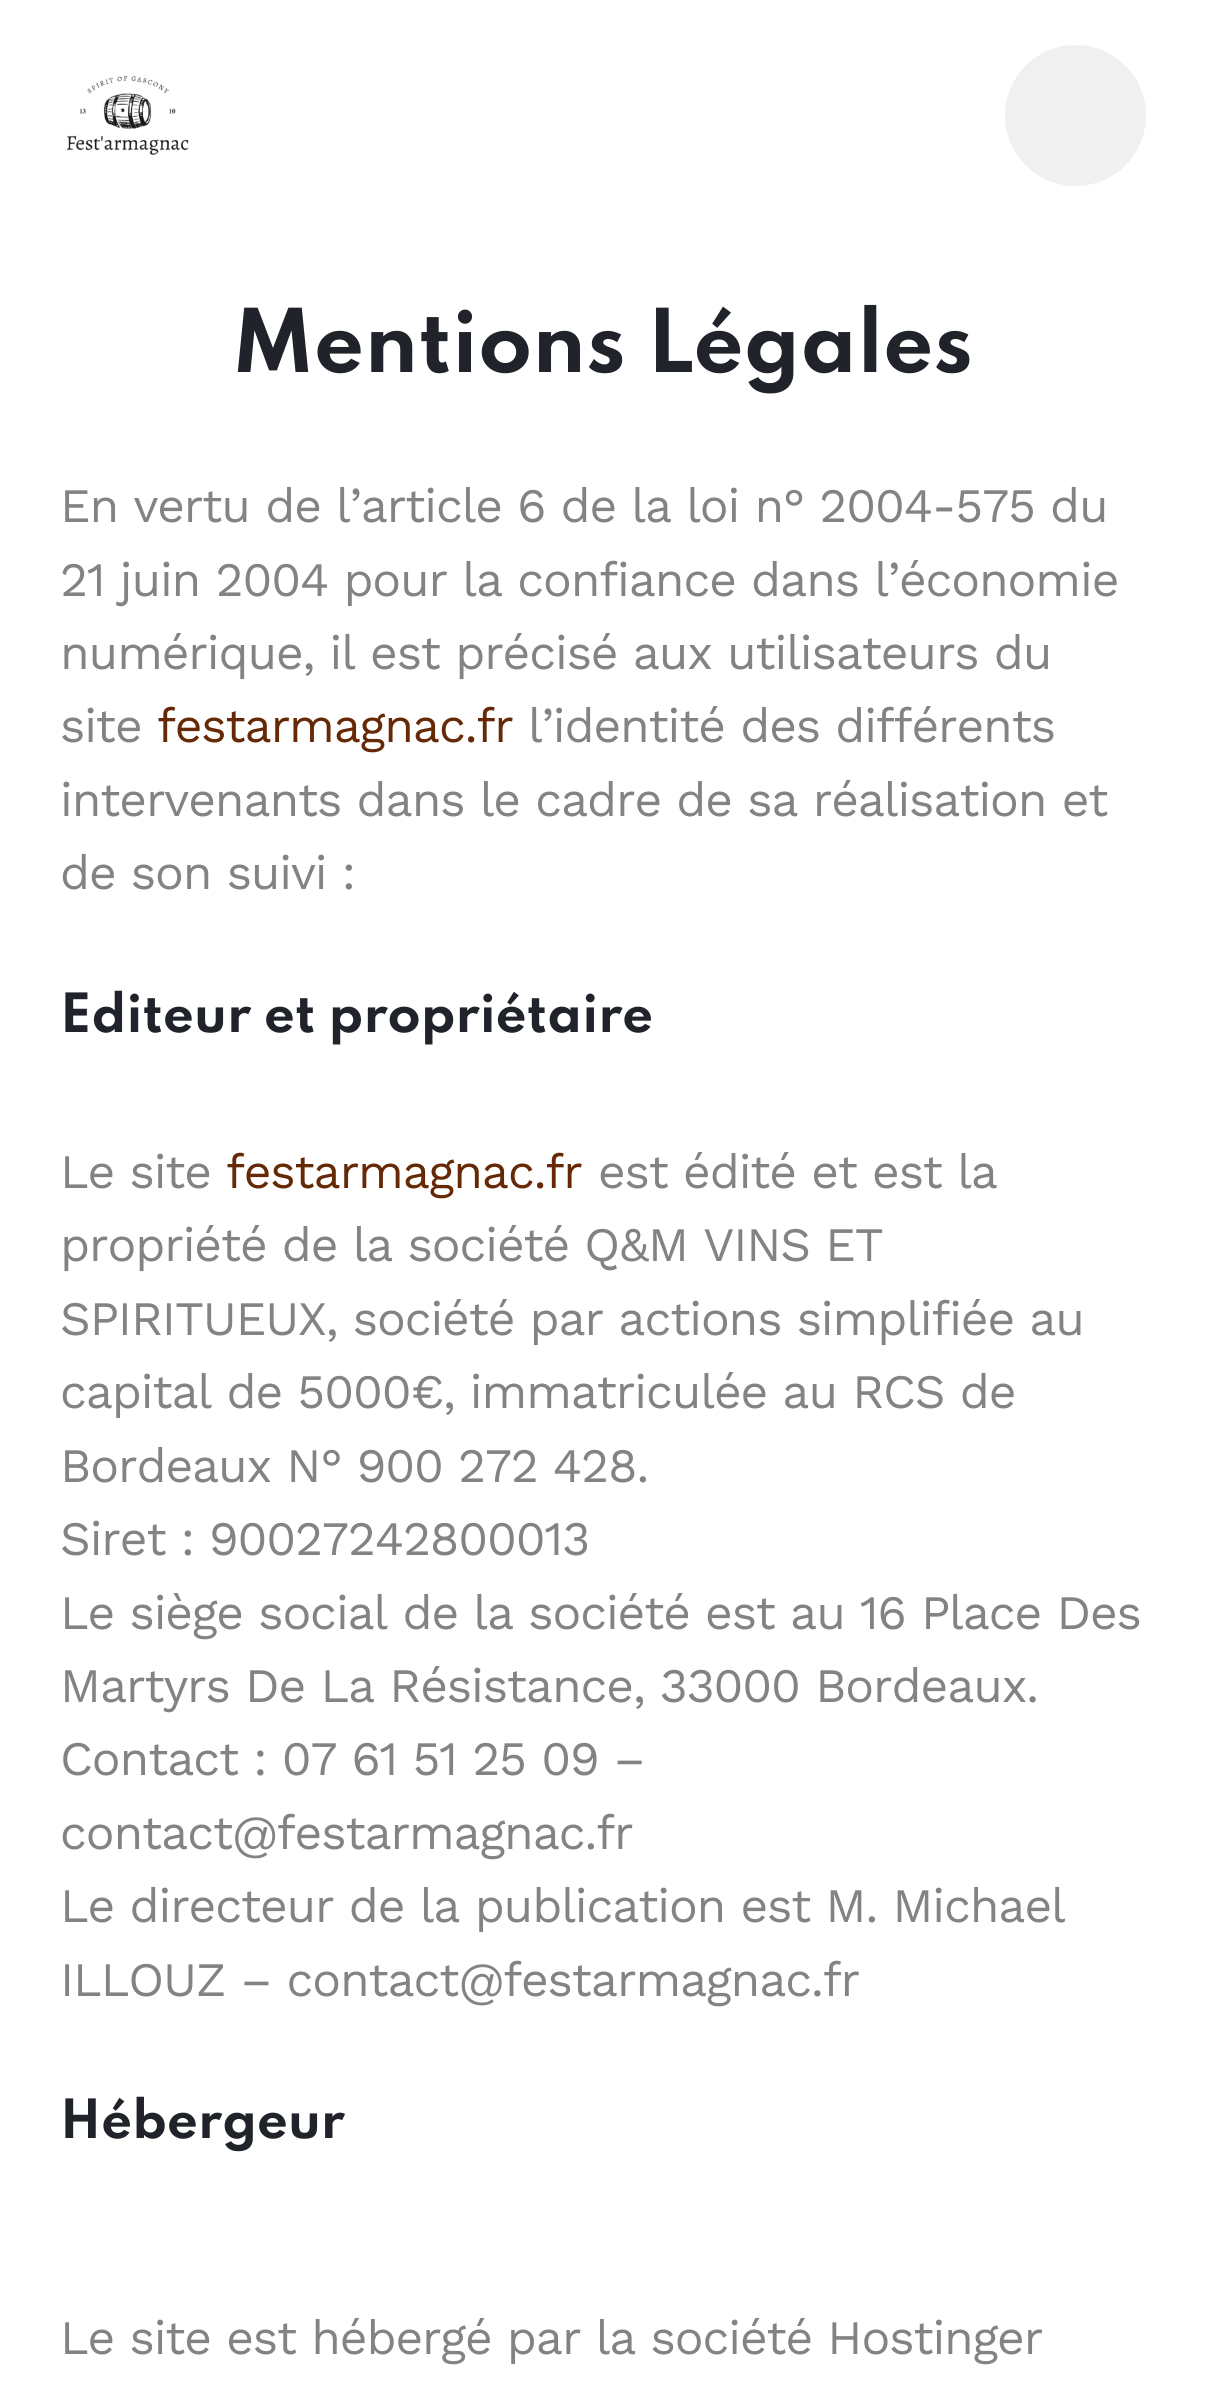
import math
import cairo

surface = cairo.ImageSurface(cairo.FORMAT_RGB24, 1205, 2388)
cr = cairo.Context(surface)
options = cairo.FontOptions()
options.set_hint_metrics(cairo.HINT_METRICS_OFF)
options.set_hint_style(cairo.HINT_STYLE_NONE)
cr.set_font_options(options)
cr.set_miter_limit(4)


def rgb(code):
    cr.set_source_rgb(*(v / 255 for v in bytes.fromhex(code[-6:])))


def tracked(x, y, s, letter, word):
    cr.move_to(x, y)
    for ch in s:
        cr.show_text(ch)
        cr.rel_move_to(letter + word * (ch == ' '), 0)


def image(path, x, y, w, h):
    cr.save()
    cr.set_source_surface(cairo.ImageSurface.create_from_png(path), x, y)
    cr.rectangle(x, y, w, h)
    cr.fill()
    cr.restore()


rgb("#ffffff")
cr.paint()
image("img/1.png", 66, 76, 123, 79)
rgb("#f0f0f0")
cr.arc(1075.5, 115.5, 70.5, 0, 2 * math.pi)
cr.fill()
cr.select_font_face("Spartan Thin", cairo.FONT_SLANT_NORMAL, cairo.FONT_WEIGHT_BOLD)
cr.set_font_size(78)
rgb("#20232a")
cr.move_to(232, 372)
cr.show_text("Mentions Légales")
cr.select_font_face("Work Sans")
cr.set_font_size(48)
rgb("#828385")
for x, y, s in [
    (60, 522, "En vertu de l’article 6 de la loi n° 2004-575 du"),
    (60, 596, "21 juin 2004 pour la confiance dans l’économie"),
    (60, 669, "numérique, il est précisé aux utilisateurs du"),
    (60, 742, "site"),
]:
    tracked(x, y, s, -1.1, 0)
rgb("#652906")
tracked(157, 742, "festarmagnac.fr", -1.1, 0)
rgb("#828385")
for x, y, s in [
    (528, 742, "l’identité des différents"),
    (60, 816, "intervenants dans le cadre de sa réalisation et"),
    (60, 889, "de son suivi :"),
]:
    tracked(x, y, s, -1.1, 0)
cr.select_font_face("Spartan Thin", cairo.FONT_SLANT_NORMAL, cairo.FONT_WEIGHT_BOLD)
rgb("#20232a")
cr.move_to(60, 1032)
cr.show_text("Editeur et propriétaire")
cr.select_font_face("Work Sans")
rgb("#828385")
tracked(60, 1188, "Le site", -1.1, 0)
rgb("#652906")
tracked(226, 1188, "festarmagnac.fr", -1.1, 0)
rgb("#828385")
for x, y, s in [
    (598, 1188, "est édité et est la"),
    (60, 1261, "propriété de la société Q&M VINS ET"),
    (60, 1335, "SPIRITUEUX, société par actions simplifiée au"),
    (60, 1408, "capital de 5000€, immatriculée au RCS de"),
    (60, 1482, "Bordeaux N° 900 272 428."),
    (60, 1555, "Siret : 90027242800013"),
    (60, 1629, "Le siège social de la société est au 16 Place Des"),
    (60, 1702, "Martyrs De La Résistance, 33000 Bordeaux."),
    (60, 1775, "Contact : 07 61 51 25 09 –"),
    (60, 1849, "contact@festarmagnac.fr"),
    (60, 1922, "Le directeur de la publication est M. Michael"),
    (60, 1996, "ILLOUZ – contact@festarmagnac.fr"),
]:
    tracked(x, y, s, -1.1, 0)
cr.select_font_face("Spartan Thin", cairo.FONT_SLANT_NORMAL, cairo.FONT_WEIGHT_BOLD)
rgb("#20232a")
cr.move_to(60, 2138)
cr.show_text("Hébergeur")
cr.select_font_face("Work Sans")
rgb("#828385")
tracked(60, 2354, "Le site est hébergé par la société Hostinger", -1.1, 0)
surface.write_to_png("page.png")
